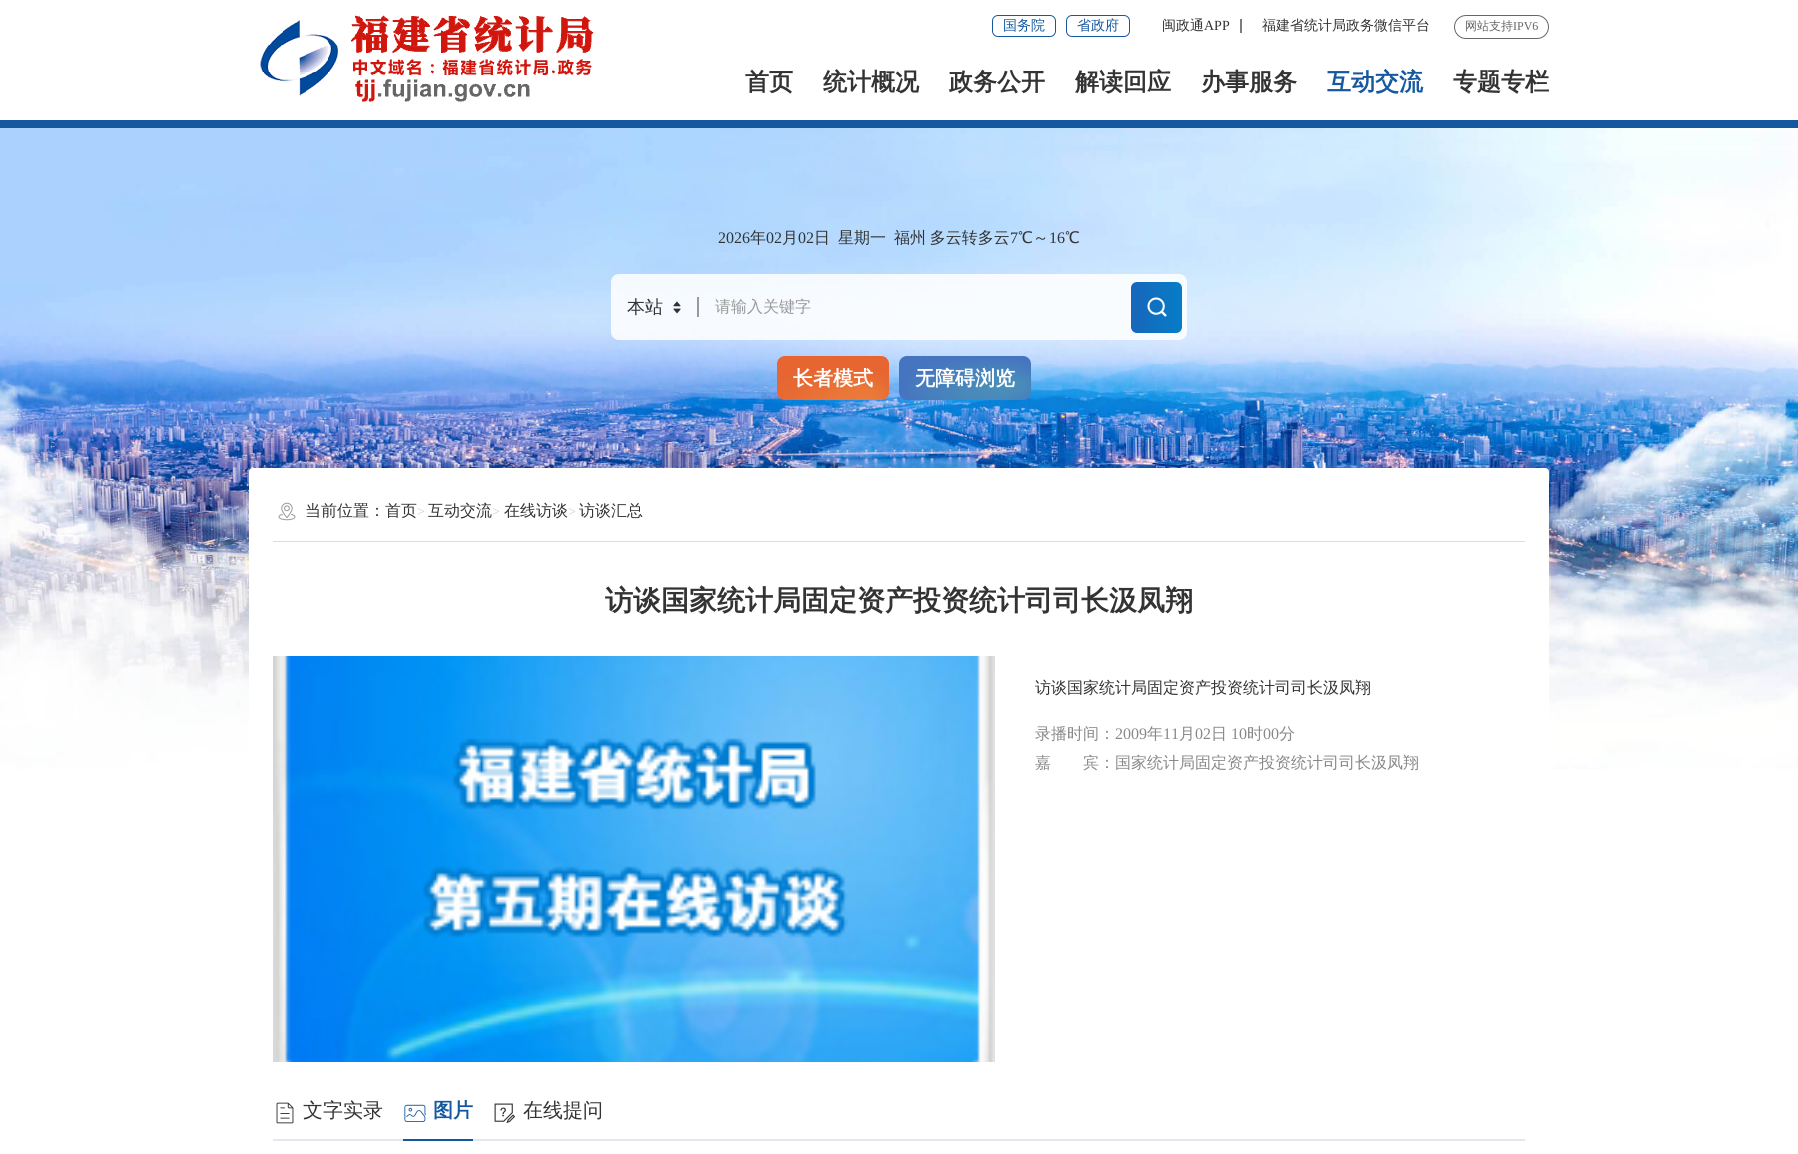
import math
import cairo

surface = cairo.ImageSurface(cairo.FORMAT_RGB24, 1798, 1154)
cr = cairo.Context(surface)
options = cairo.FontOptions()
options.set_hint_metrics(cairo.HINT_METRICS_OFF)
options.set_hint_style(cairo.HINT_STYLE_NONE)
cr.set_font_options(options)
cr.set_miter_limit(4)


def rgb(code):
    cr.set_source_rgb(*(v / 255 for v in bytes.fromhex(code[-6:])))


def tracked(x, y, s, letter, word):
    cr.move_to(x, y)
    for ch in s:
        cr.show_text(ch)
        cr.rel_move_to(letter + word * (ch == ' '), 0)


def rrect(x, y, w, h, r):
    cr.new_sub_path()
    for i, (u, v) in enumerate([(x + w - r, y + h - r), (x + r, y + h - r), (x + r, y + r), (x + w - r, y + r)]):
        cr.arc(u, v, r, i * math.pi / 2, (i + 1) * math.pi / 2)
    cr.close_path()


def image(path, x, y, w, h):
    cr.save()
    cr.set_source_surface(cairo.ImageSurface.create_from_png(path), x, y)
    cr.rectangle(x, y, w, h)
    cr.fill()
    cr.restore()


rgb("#ffffff")
cr.paint()
image("img/1.png", 0, 128, 1798, 641)
rgb("#1658a0")
cr.rectangle(0, 120, 1798, 8)
cr.fill()
image("img/2.png", 260, 15, 334, 87)
rrect(992.5, 15.5, 63, 21, 5.5)
cr.set_line_width(1)
cr.stroke()
rrect(1066.5, 15.5, 63, 21, 5.5)
cr.stroke()
rgb("#7d7d7d")
cr.rectangle(1240, 19, 2, 14)
cr.fill()
rrect(1454.5, 15.5, 94, 23, 11.5)
rgb("#666666")
cr.stroke()
cr.set_source_rgba(1, 1, 1, 0.86)
rrect(611, 274, 576, 66, 8)
cr.fill()
image("img/3.png", 673, 301, 8, 13)
rgb("#999999")
cr.rectangle(697, 297, 2, 20)
cr.fill()
gradient = cairo.LinearGradient(1131, 308, 1182, 308)
gradient.add_color_stop_rgba(0, 0.094, 0.4, 0.733, 1)
gradient.add_color_stop_rgba(1, 0.027, 0.49, 0.78, 1)
cr.set_source(gradient)
rrect(1131, 282, 51, 51, 6)
cr.fill()
image("img/4.png", 1147, 297, 20, 20)
rgb("#e66531")
rrect(777, 356, 112, 44, 8)
cr.fill()
image("img/5.png", 778, 371, 111, 29)
rgb("#4674c0")
rrect(899, 356, 132, 44, 8)
cr.fill()
image("img/6.png", 908, 359, 123, 41)
rgb("#ffffff")
rrect(249, 468, 1300, 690, 4)
cr.fill()
rgb("#dcdcdc")
cr.rectangle(273, 541, 1252, 1)
cr.fill()
image("img/7.png", 278, 502, 18, 19)
image("img/8.png", 273, 656, 722, 406)
image("img/9.png", 276, 1102, 18, 22)
image("img/10.png", 404, 1104, 22, 18)
rgb("#e4e7ed")
cr.rectangle(273, 1139, 1252, 2)
cr.fill()
rgb("#1658a0")
cr.rectangle(403, 1139, 70, 2)
cr.fill()
image("img/11.png", 494, 1103, 22, 21)
cr.select_font_face("WenQuanYi Zen Hei Medium")
cr.set_font_size(14)
cr.move_to(1003, 30)
cr.show_text("国务院")
cr.move_to(1077, 30)
cr.show_text("省政府")
rgb("#333333")
cr.move_to(1162, 30)
cr.show_text("闽政通")
cr.select_font_face("Liberation Serif")
cr.move_to(1204, 30)
cr.show_text("APP")
cr.select_font_face("WenQuanYi Zen Hei Medium")
cr.move_to(1262, 30)
cr.show_text("福建省统计局政务微信平台")
cr.set_font_size(12)
rgb("#666666")
cr.move_to(1465, 30)
cr.show_text("网站支持")
cr.select_font_face("Liberation Serif")
cr.move_to(1513, 30)
cr.show_text("IPV6")
cr.select_font_face("WenQuanYi Zen Hei", cairo.FONT_SLANT_NORMAL, cairo.FONT_WEIGHT_BOLD)
cr.set_font_size(24)
rgb("#333333")
for x, y, s in [
    (745, 90, "首页"),
    (823, 90, "统计概况"),
    (949, 90, "政务公开"),
    (1075, 90, "解读回应"),
    (1201, 90, "办事服务"),
]:
    cr.move_to(x, y)
    cr.show_text(s)
rgb("#1658a0")
cr.move_to(1327, 90)
cr.show_text("互动交流")
rgb("#333333")
cr.move_to(1453, 90)
cr.show_text("专题专栏")
cr.select_font_face("Liberation Serif")
cr.set_font_size(16)
cr.move_to(718, 243)
cr.show_text("2026")
cr.select_font_face("WenQuanYi Zen Hei Medium")
cr.move_to(750, 243)
cr.show_text("年")
cr.select_font_face("Liberation Serif")
cr.move_to(766, 243)
cr.show_text("02")
cr.select_font_face("WenQuanYi Zen Hei Medium")
cr.move_to(782, 243)
cr.show_text("月")
cr.select_font_face("Liberation Serif")
cr.move_to(798, 243)
cr.show_text("02")
cr.select_font_face("WenQuanYi Zen Hei Medium")
cr.move_to(814, 243)
cr.show_text("日")
cr.move_to(838, 243)
cr.show_text("星期一")
tracked(894, 243, "福州 多云转多云", 0, -1)
cr.select_font_face("Liberation Serif")
cr.move_to(1010, 243)
cr.show_text("7")
cr.select_font_face("WenQuanYi Zen Hei Medium")
cr.move_to(1018, 243)
cr.show_text("℃～")
cr.select_font_face("Liberation Serif")
cr.move_to(1049, 243)
cr.show_text("16")
cr.select_font_face("WenQuanYi Zen Hei Medium")
cr.move_to(1065, 243)
cr.show_text("℃")
cr.set_font_size(18)
cr.move_to(627, 313)
cr.show_text("本站")
cr.set_font_size(16)
rgb("#999999")
cr.move_to(715, 312)
cr.show_text("请输入关键字")
cr.select_font_face("WenQuanYi Zen Hei", cairo.FONT_SLANT_NORMAL, cairo.FONT_WEIGHT_BOLD)
cr.set_font_size(20)
rgb("#ffffff")
cr.move_to(793, 385)
cr.show_text("长者模式")
cr.move_to(915, 385)
cr.show_text("无障碍浏览")
cr.select_font_face("WenQuanYi Zen Hei Medium")
cr.set_font_size(16)
rgb("#333333")
cr.move_to(305, 516)
cr.show_text("当前位置：首页")
cr.select_font_face("Liberation Serif")
cr.set_font_size(14)
rgb("#cccccc")
cr.move_to(417, 516)
cr.show_text(">")
cr.select_font_face("WenQuanYi Zen Hei Medium")
cr.set_font_size(16)
rgb("#333333")
cr.move_to(428, 516)
cr.show_text("互动交流")
cr.select_font_face("Liberation Serif")
cr.set_font_size(14)
rgb("#cccccc")
cr.move_to(492, 516)
cr.show_text(">")
cr.select_font_face("WenQuanYi Zen Hei Medium")
cr.set_font_size(16)
rgb("#333333")
cr.move_to(504, 516)
cr.show_text("在线访谈")
cr.select_font_face("Liberation Serif")
cr.set_font_size(14)
rgb("#cccccc")
cr.move_to(568, 516)
cr.show_text(">")
cr.select_font_face("WenQuanYi Zen Hei Medium")
cr.set_font_size(16)
rgb("#333333")
cr.move_to(579, 516)
cr.show_text("访谈汇总")
cr.select_font_face("WenQuanYi Zen Hei", cairo.FONT_SLANT_NORMAL, cairo.FONT_WEIGHT_BOLD)
cr.set_font_size(28)
cr.move_to(605, 610)
cr.show_text("访谈国家统计局固定资产投资统计司司长汲凤翔")
cr.select_font_face("WenQuanYi Zen Hei Medium")
cr.set_font_size(16)
cr.move_to(1035, 693)
cr.show_text("访谈国家统计局固定资产投资统计司司长汲凤翔")
rgb("#888888")
cr.move_to(1035, 739)
cr.show_text("录播时间：")
cr.select_font_face("Liberation Serif")
cr.move_to(1115, 739)
cr.show_text("2009")
cr.select_font_face("WenQuanYi Zen Hei Medium")
cr.move_to(1147, 739)
cr.show_text("年")
cr.select_font_face("Liberation Serif")
cr.move_to(1163, 739)
cr.show_text("11")
cr.select_font_face("WenQuanYi Zen Hei Medium")
cr.move_to(1179, 739)
cr.show_text("月")
cr.select_font_face("Liberation Serif")
cr.move_to(1195, 739)
cr.show_text("02")
cr.select_font_face("WenQuanYi Zen Hei Medium")
cr.move_to(1211, 739)
cr.show_text("日")
cr.select_font_face("Liberation Serif")
cr.move_to(1231, 739)
cr.show_text("10")
cr.select_font_face("WenQuanYi Zen Hei Medium")
cr.move_to(1247, 739)
cr.show_text("时")
cr.select_font_face("Liberation Serif")
cr.move_to(1263, 739)
cr.show_text("00")
cr.select_font_face("WenQuanYi Zen Hei Medium")
for x, y, s in [
    (1279, 739, "分"),
    (1035, 768, "嘉"),
    (1083, 768, "宾：国家统计局固定资产投资统计司司长汲凤翔"),
]:
    cr.move_to(x, y)
    cr.show_text(s)
cr.set_font_size(20)
rgb("#333333")
cr.move_to(303, 1117)
cr.show_text("文字实录")
cr.select_font_face("WenQuanYi Zen Hei", cairo.FONT_SLANT_NORMAL, cairo.FONT_WEIGHT_BOLD)
rgb("#1658a0")
cr.move_to(433, 1117)
cr.show_text("图片")
cr.select_font_face("WenQuanYi Zen Hei Medium")
rgb("#333333")
cr.move_to(523, 1117)
cr.show_text("在线提问")
surface.write_to_png("page.png")
